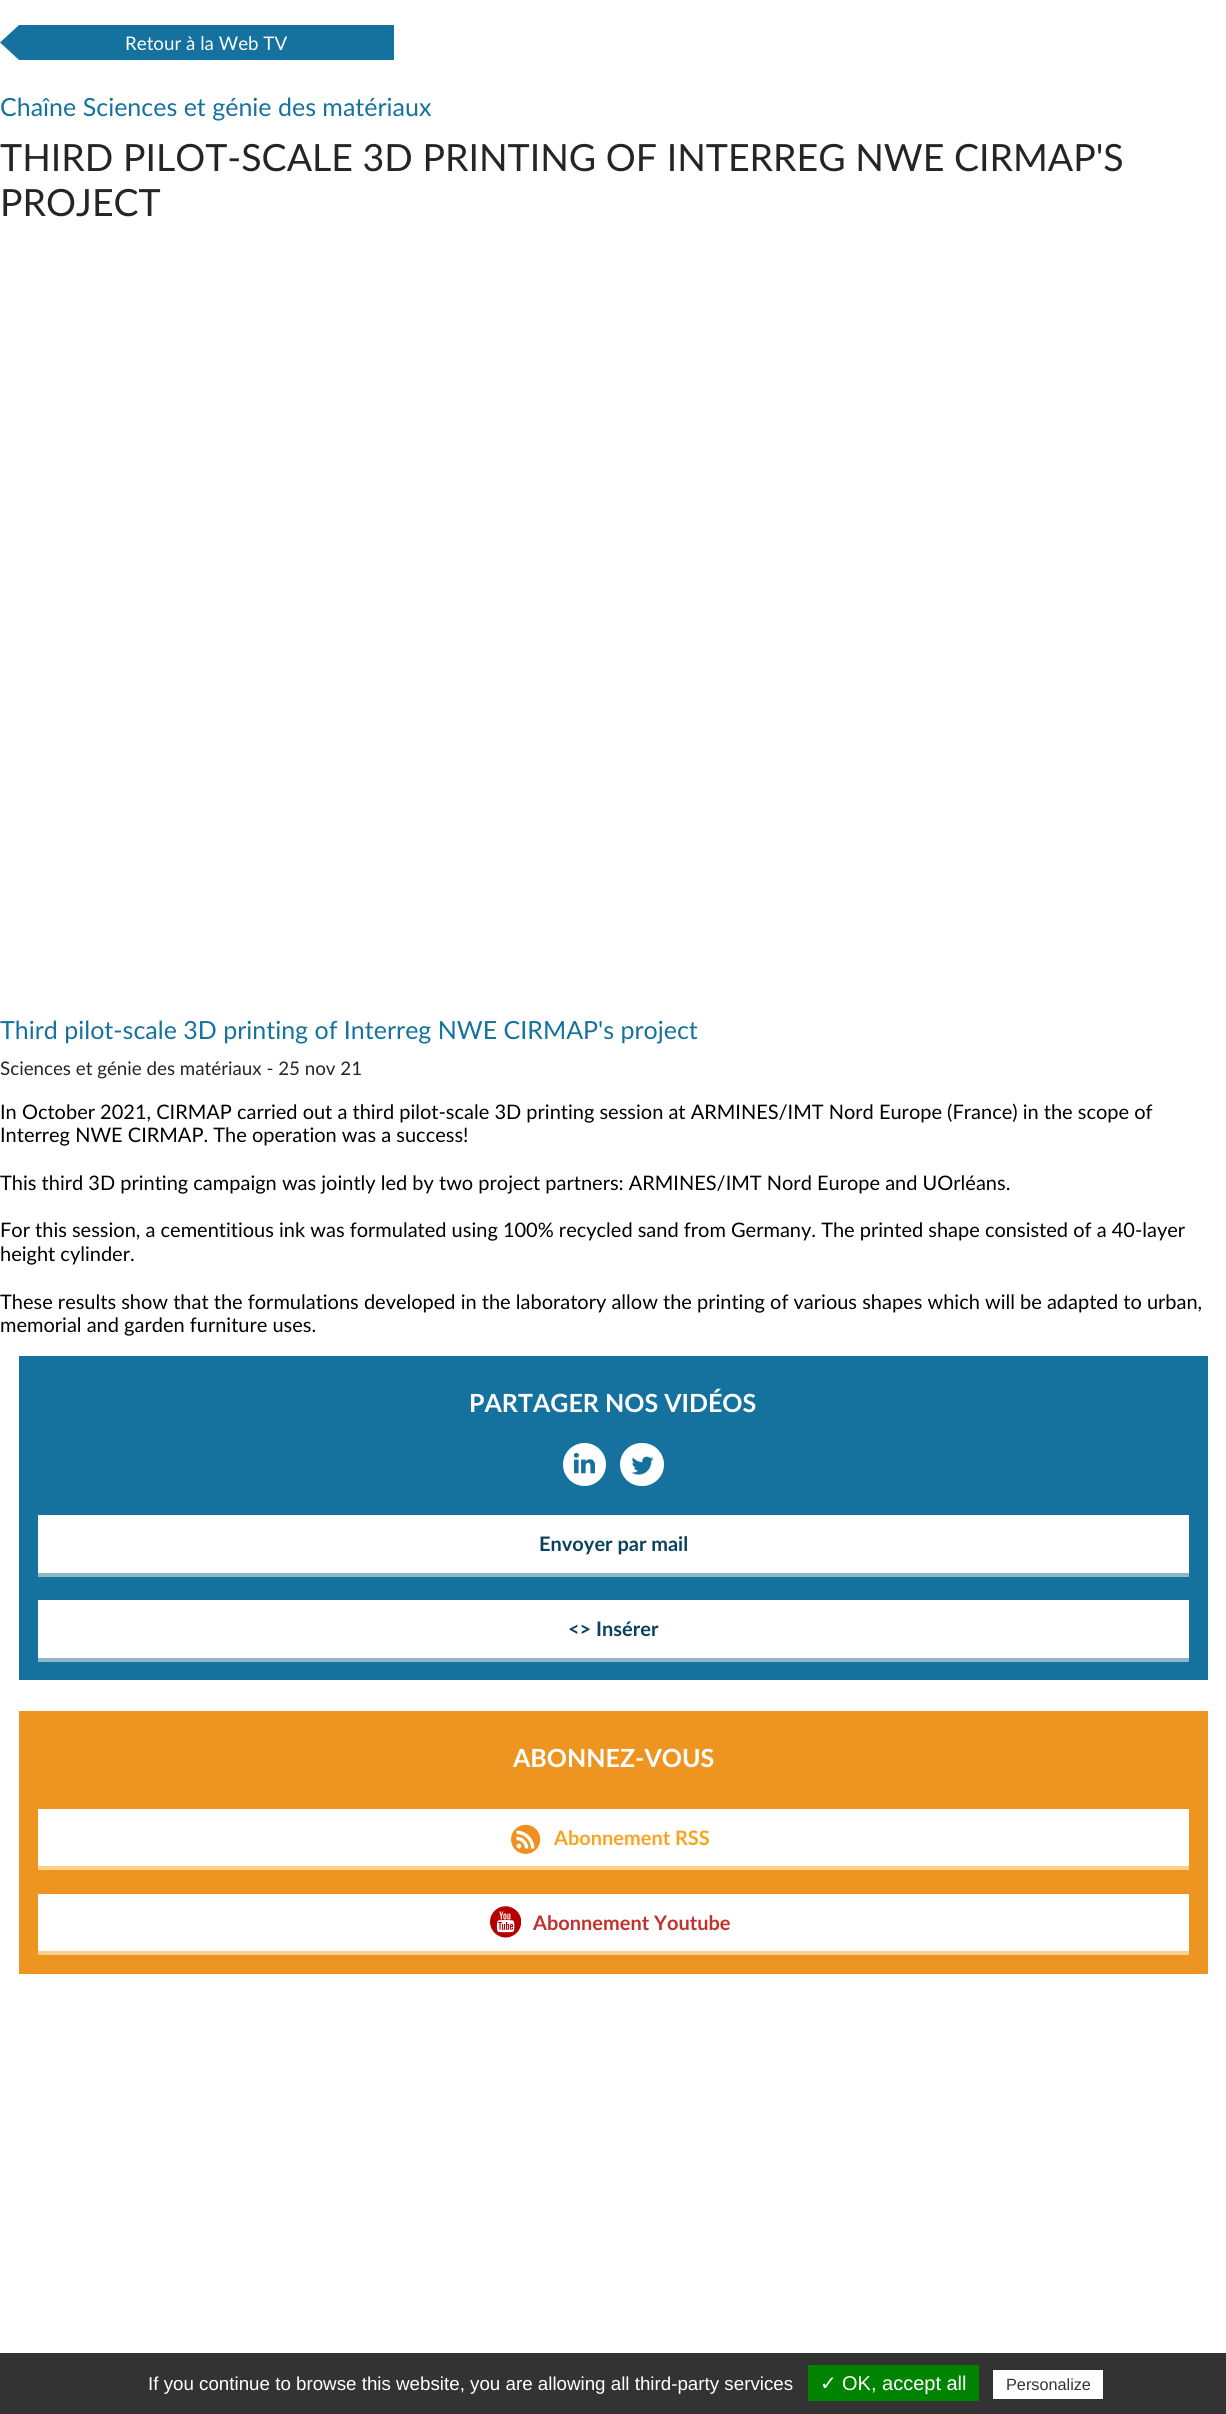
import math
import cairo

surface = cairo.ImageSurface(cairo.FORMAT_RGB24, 1226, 2414)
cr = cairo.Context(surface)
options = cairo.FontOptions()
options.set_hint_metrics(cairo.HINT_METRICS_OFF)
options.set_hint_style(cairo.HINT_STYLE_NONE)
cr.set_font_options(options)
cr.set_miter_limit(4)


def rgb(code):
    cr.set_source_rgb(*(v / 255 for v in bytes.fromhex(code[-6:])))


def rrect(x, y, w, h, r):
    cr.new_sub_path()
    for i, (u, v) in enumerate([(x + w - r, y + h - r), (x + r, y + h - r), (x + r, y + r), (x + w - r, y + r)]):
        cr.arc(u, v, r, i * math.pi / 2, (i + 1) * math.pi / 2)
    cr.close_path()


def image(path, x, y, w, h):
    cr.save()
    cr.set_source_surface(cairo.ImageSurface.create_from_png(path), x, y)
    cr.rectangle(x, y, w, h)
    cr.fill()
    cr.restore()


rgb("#ffffff")
cr.paint()
rgb("#15729f")
cr.rectangle(19, 25, 375, 35)
cr.fill()
cr.new_path()
cr.move_to(19, 25)
cr.line_to(19, 60)
cr.line_to(0, 42.5)
cr.close_path()
cr.fill()
cr.rectangle(19, 1356, 1189, 324)
cr.fill()
rgb("#ffffff")
cr.arc(584.5, 1464.5, 21.5, 0, 2 * math.pi)
cr.fill()
image("img/1.png", 574, 1453, 21, 21)
rrect(620, 1443, 44, 43, 21.5)
cr.fill()
image("img/2.png", 631, 1456, 23, 19)
for x, y, w, h, color in [
    (38, 1515, 1151, 58, "#ffffff"),
    (38, 1573, 1151, 4, "#91b7c4"),
    (38, 1600, 1151, 58, "#ffffff"),
    (38, 1658, 1151, 4, "#91b7c4"),
    (19, 1711, 1189, 263, "#ee9521"),
    (38, 1809, 1151, 57, "#ffffff"),
    (38, 1866, 1151, 4, "#fcd18f"),
]:
    rgb(color)
    cr.rectangle(x, y, w, h)
    cr.fill()
image("img/3.png", 511, 1824, 30, 30)
rgb("#ffffff")
cr.rectangle(38, 1894, 1151, 57)
cr.fill()
rgb("#fcd18f")
cr.rectangle(38, 1951, 1151, 4)
cr.fill()
image("img/4.png", 490, 1906, 31, 32)
for x, y, w, h, color in [
    (0, 2353, 1226, 61, "#333333"),
    (808, 2365, 171, 36, "#008300"),
    (993, 2370, 110, 29, "#ffffff"),
]:
    rgb(color)
    cr.rectangle(x, y, w, h)
    cr.fill()
cr.select_font_face("Lato")
cr.set_font_size(18.75)
cr.move_to(125, 50)
cr.show_text("Retour à la Web TV")
cr.set_font_size(25)
rgb("#15729f")
cr.move_to(0, 116)
cr.show_text("Chaîne Sciences et génie des matériaux")
cr.set_font_size(37.5)
rgb("#252525")
cr.move_to(0, 171)
cr.show_text("THIRD PILOT-SCALE 3D PRINTING OF INTERREG NWE CIRMAP'S")
cr.move_to(0, 216)
cr.show_text("PROJECT")
cr.set_font_size(25)
rgb("#15729f")
cr.move_to(0, 1039)
cr.show_text("Third pilot-scale 3D printing of Interreg NWE CIRMAP's project")
cr.set_font_size(18.75)
rgb("#252525")
cr.move_to(0, 1075)
cr.show_text("Sciences et génie des matériaux - 25 nov 21")
cr.set_font_size(20)
rgb("#000000")
for x, y, s in [
    (0, 1119, "In October 2021, CIRMAP carried out a third pilot-scale 3D printing session at ARMINES/IMT Nord Europe (France) in the scope of"),
    (0, 1142, "Interreg NWE CIRMAP. The operation was a success!"),
    (0, 1190, "This third 3D printing campaign was jointly led by two project partners: ARMINES/IMT Nord Europe and UOrléans."),
    (0, 1237, "For this session, a cementitious ink was formulated using 100% recycled sand from Germany. The printed shape consisted of a 40-layer"),
    (0, 1261, "height cylinder."),
    (0, 1309, "These results show that the formulations developed in the laboratory allow the printing of various shapes which will be adapted to urban,"),
    (0, 1332, "memorial and garden furniture uses."),
]:
    cr.move_to(x, y)
    cr.show_text(s)
cr.select_font_face("Lato", cairo.FONT_SLANT_NORMAL, cairo.FONT_WEIGHT_BOLD)
cr.set_font_size(25)
rgb("#ffffff")
cr.move_to(469, 1412)
cr.show_text("PARTAGER NOS VIDÉOS")
cr.set_font_size(20)
rgb("#0b415e")
cr.move_to(539, 1551)
cr.show_text("Envoyer par mail")
cr.move_to(568, 1636)
cr.show_text("<> Insérer")
cr.set_font_size(25)
rgb("#ffffff")
cr.move_to(513, 1767)
cr.show_text("ABONNEZ-VOUS")
cr.set_font_size(20)
rgb("#f9a31f")
cr.move_to(554, 1845)
cr.show_text("Abonnement RSS")
rgb("#c4302b")
cr.move_to(533, 1930)
cr.show_text("Abonnement Youtube")
cr.select_font_face("Liberation Sans")
cr.set_font_size(18.75)
rgb("#ffffff")
cr.move_to(148, 2390)
cr.show_text("If you continue to browse this website, you are allowing all third-party services")
cr.select_font_face("DejaVu Sans")
cr.set_font_size(20)
cr.move_to(820, 2390)
cr.show_text("✓")
cr.select_font_face("Liberation Sans")
cr.move_to(842, 2390)
cr.show_text("OK, accept all")
cr.set_font_size(16.25)
rgb("#333333")
cr.move_to(1006, 2390)
cr.show_text("Personalize")
surface.write_to_png("page.png")
